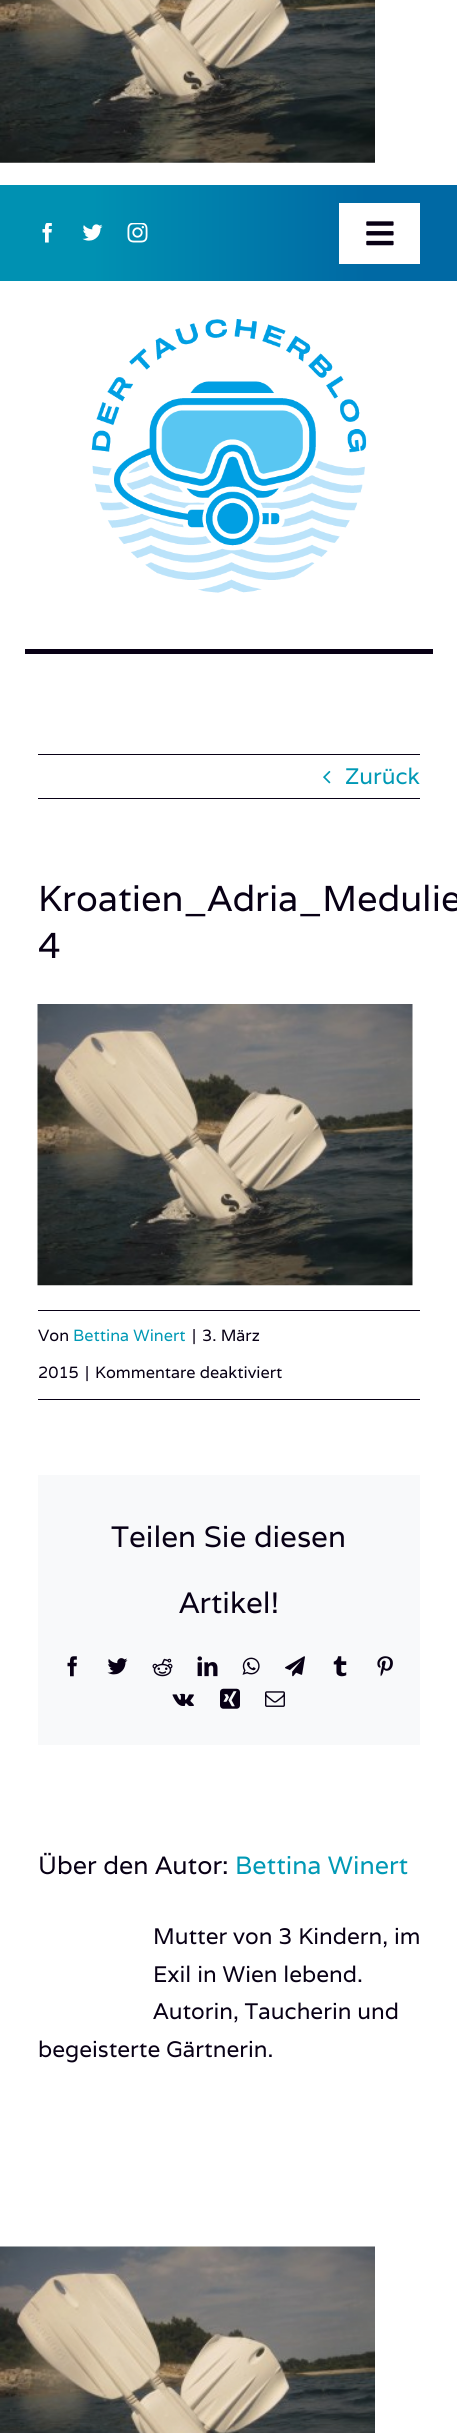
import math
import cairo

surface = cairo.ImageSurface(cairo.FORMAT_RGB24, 457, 2433)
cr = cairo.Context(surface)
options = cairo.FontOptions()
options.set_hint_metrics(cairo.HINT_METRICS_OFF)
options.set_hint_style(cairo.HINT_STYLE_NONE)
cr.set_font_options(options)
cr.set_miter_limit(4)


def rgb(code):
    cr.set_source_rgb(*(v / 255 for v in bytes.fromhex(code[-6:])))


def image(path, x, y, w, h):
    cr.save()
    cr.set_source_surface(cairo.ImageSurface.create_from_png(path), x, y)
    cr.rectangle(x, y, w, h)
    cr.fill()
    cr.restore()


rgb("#ffffff")
cr.paint()
image("img/1.png", 0, 0, 375, 163)
gradient = cairo.LinearGradient(0, 233, 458, 233)
gradient.add_color_stop_rgba(0.2, 0, 0.569, 0.698, 1)
gradient.add_color_stop_rgba(0.8, 0, 0.412, 0.643, 1)
cr.set_source(gradient)
cr.rectangle(0, 185, 457, 96)
cr.fill()
image("img/2.png", 42, 223, 10, 20)
image("img/3.png", 82, 224, 21, 17)
image("img/4.png", 127, 223, 21, 20)
rgb("#ffffff")
cr.rectangle(339, 203, 81, 61)
cr.fill()
image("img/5.png", 366, 221, 28, 25)
image("img/6.png", 91, 319, 276, 274)
for x, y, w, h, color in [
    (25, 649, 408, 5, "#080015"),
    (38, 754, 382, 1, "#080015"),
    (38, 798, 382, 1, "#080015"),
]:
    rgb(color)
    cr.rectangle(x, y, w, h)
    cr.fill()
image("img/7.png", 323, 770, 8, 14)
image("img/8.png", 37, 1004, 376, 282)
for x, y, w, h, color in [
    (38, 1310, 382, 1, "#080015"),
    (38, 1399, 382, 1, "#080015"),
    (38, 1475, 382, 270, "#f8f9fa"),
]:
    rgb(color)
    cr.rectangle(x, y, w, h)
    cr.fill()
image("img/9.png", 67, 1656, 10, 21)
image("img/10.png", 107, 1658, 21, 17)
image("img/11.png", 152, 1658, 21, 19)
image("img/12.png", 197, 1656, 21, 21)
image("img/13.png", 242, 1657, 18, 18)
image("img/14.png", 285, 1656, 20, 21)
image("img/15.png", 333, 1656, 14, 21)
image("img/16.png", 377, 1656, 16, 21)
image("img/17.png", 172, 1693, 22, 14)
image("img/18.png", 220, 1688, 20, 21)
image("img/19.png", 265, 1691, 20, 16)
image("img/20.png", 0, 2246, 375, 187)
cr.select_font_face("Varela")
cr.set_font_size(22.5)
rgb("#0099b5")
cr.move_to(345, 784)
cr.show_text("Zurück")
cr.set_font_size(36)
rgb("#080015")
cr.move_to(38, 911)
cr.show_text("Kroatien_Adria_Medulie")
cr.move_to(38, 958)
cr.show_text("4")
cr.set_font_size(16.25)
cr.move_to(38, 1341)
cr.show_text("Von")
rgb("#0099b5")
cr.move_to(73, 1341)
cr.show_text("Bettina Winert")
rgb("#080015")
for x, y, s in [
    (192, 1341, "|"),
    (202, 1341, "3. März"),
    (38, 1378, "2015"),
    (85, 1378, "|"),
    (95, 1378, "Kommentare deaktiviert"),
]:
    cr.move_to(x, y)
    cr.show_text(s)
cr.set_font_size(29.5)
cr.move_to(111, 1547)
cr.show_text("Teilen Sie diesen")
cr.move_to(179, 1613)
cr.show_text("Artikel!")
cr.set_font_size(25)
cr.move_to(38, 1874)
cr.show_text("Über den Autor:")
rgb("#0099b5")
cr.move_to(235, 1874)
cr.show_text("Bettina Winert")
cr.set_font_size(22.5)
rgb("#080015")
for x, y, s in [
    (153, 1944, "Mutter von 3 Kindern, im"),
    (153, 1982, "Exil in Wien lebend."),
    (153, 2019, "Autorin, Taucherin und"),
    (38, 2057, "begeisterte Gärtnerin."),
]:
    cr.move_to(x, y)
    cr.show_text(s)
surface.write_to_png("page.png")
